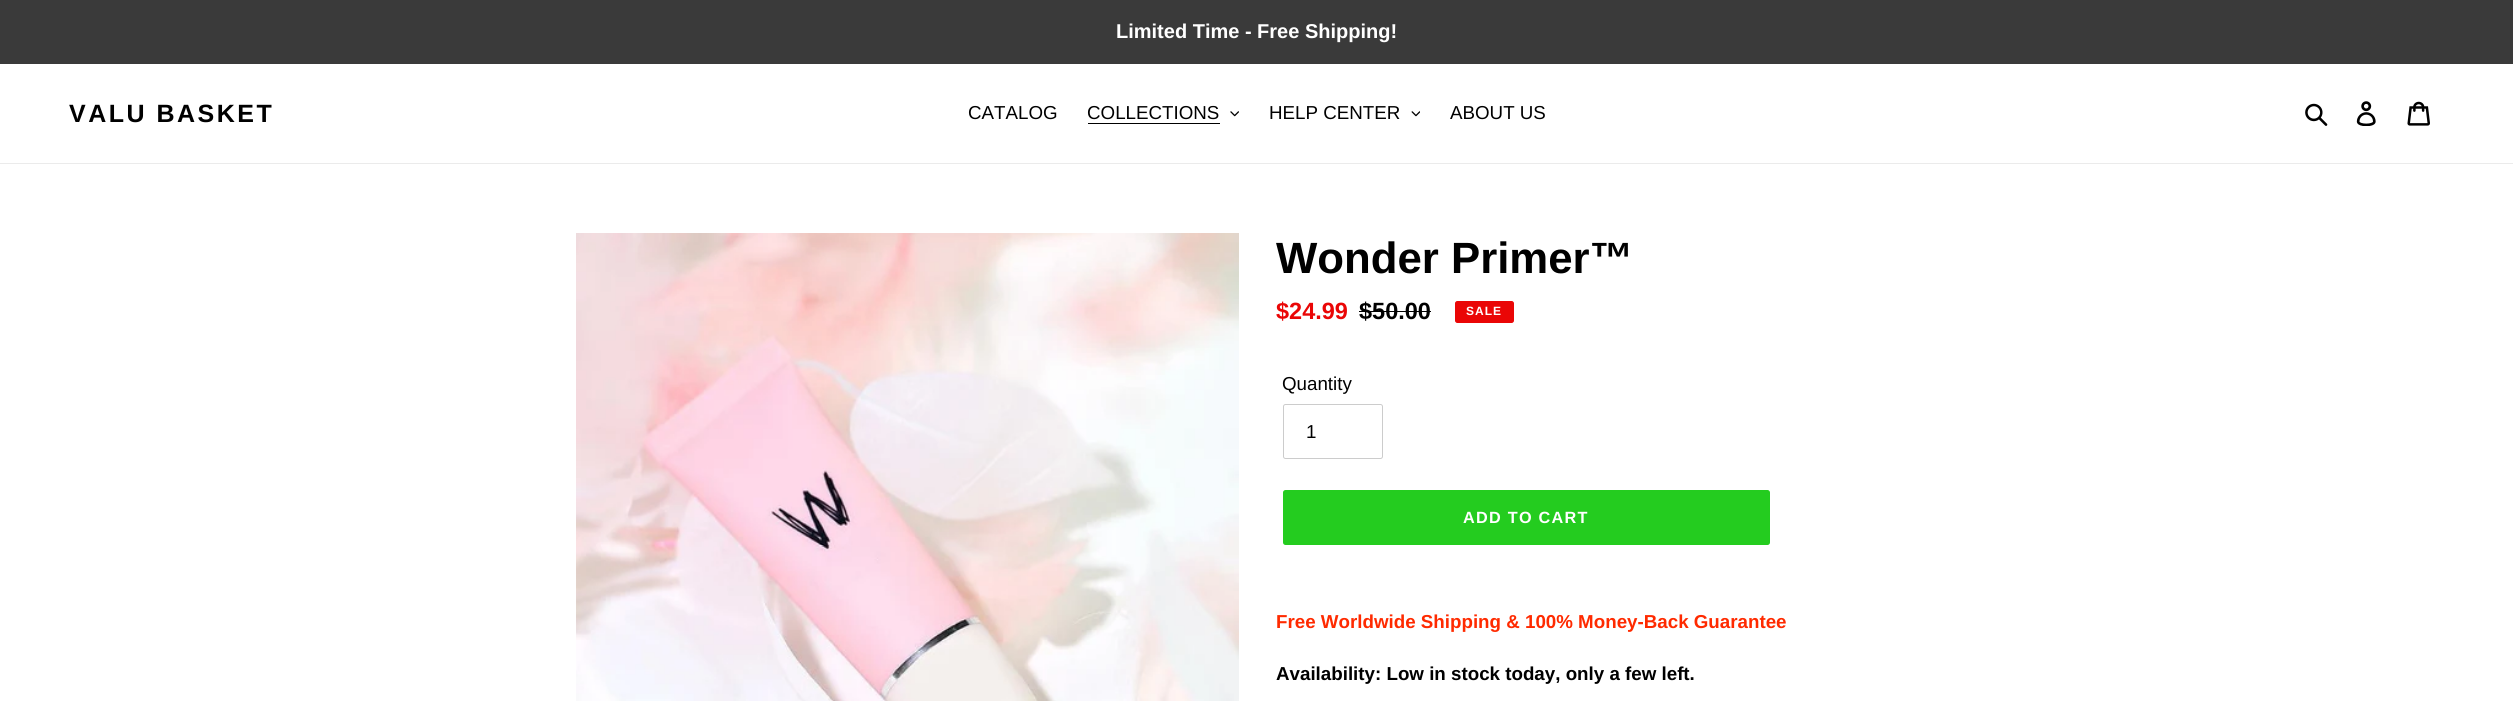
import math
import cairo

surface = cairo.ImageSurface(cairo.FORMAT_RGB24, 2513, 701)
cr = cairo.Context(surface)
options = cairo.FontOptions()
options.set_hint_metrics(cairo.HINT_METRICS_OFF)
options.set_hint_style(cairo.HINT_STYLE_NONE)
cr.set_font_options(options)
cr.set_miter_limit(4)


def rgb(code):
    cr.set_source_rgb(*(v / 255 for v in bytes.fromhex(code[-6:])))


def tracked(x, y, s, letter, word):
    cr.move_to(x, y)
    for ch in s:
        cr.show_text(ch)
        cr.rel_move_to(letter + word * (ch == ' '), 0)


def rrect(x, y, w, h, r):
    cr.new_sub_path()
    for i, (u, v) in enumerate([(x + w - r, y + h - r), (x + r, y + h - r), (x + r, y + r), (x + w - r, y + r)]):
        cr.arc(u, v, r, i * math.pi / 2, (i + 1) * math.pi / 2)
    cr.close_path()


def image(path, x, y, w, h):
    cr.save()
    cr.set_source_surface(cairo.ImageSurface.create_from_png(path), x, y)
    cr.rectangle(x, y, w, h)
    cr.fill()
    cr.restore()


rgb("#ffffff")
cr.paint()
for x, y, w, h, color in [
    (0, 0, 2513, 64, "#3a3a3a"),
    (0, 163, 2513, 1, "#ebebeb"),
    (1088, 123, 132, 1, "#000000"),
]:
    rgb(color)
    cr.rectangle(x, y, w, h)
    cr.fill()
image("img/1.png", 1230, 111, 9, 6)
image("img/2.png", 1411, 111, 9, 6)
image("img/3.png", 2305, 103, 23, 23)
image("img/4.png", 2356, 101, 20, 25)
image("img/5.png", 2407, 101, 23, 25)
image("img/6.png", 576, 233, 663, 468)
cr.rectangle(1359, 311, 72, 1)
cr.fill()
rgb("#ea0606")
rrect(1455.5, 301.5, 58, 21, 2)
cr.fill_preserve()
cr.set_line_width(1)
cr.stroke()
rrect(1283.5, 404.5, 99, 54, 2)
rgb("#cccccc")
cr.stroke()
rgb("#24cc1f")
rrect(1283, 490, 487, 55, 2.5)
cr.fill()
cr.select_font_face("Liberation Sans", cairo.FONT_SLANT_NORMAL, cairo.FONT_WEIGHT_BOLD)
cr.set_font_size(20)
rgb("#ffffff")
cr.move_to(1116, 38)
cr.show_text("Limited Time - Free Shipping!")
cr.set_font_size(25)
rgb("#000000")
tracked(69, 122, "VALU BASKET", 2.5, 0)
cr.select_font_face("Liberation Sans")
cr.set_font_size(18.75)
for x, y, s in [
    (968, 119, "CATALOG"),
    (1087, 119, "COLLECTIONS"),
    (1269, 119, "HELP CENTER"),
    (1450, 119, "ABOUT US"),
]:
    cr.move_to(x, y)
    cr.show_text(s)
cr.select_font_face("Liberation Sans", cairo.FONT_SLANT_NORMAL, cairo.FONT_WEIGHT_BOLD)
cr.set_font_size(43.75)
cr.move_to(1276, 273)
cr.show_text("Wonder Primer™")
cr.set_font_size(23.5)
rgb("#ea0606")
cr.move_to(1276, 319)
cr.show_text("$24.99")
rgb("#000000")
cr.move_to(1359, 319)
cr.show_text("$50.00")
cr.set_font_size(12)
rgb("#ffffff")
tracked(1466, 315, "SALE", 1, 0)
cr.select_font_face("Liberation Sans")
cr.set_font_size(18.75)
rgb("#000000")
cr.move_to(1282, 390)
cr.show_text("Quantity")
cr.move_to(1306, 438)
cr.show_text("1")
cr.select_font_face("Liberation Sans", cairo.FONT_SLANT_NORMAL, cairo.FONT_WEIGHT_BOLD)
cr.set_font_size(16.25)
rgb("#ffffff")
tracked(1463, 523, "ADD TO CART", 1.25, 0)
cr.set_font_size(18.75)
rgb("#ff2a00")
cr.move_to(1276, 628)
cr.show_text("Free Worldwide Shipping & 100% Money-Back Guarantee")
rgb("#000000")
cr.move_to(1276, 680)
cr.show_text("Availability: Low in stock today, only a few left.")
surface.write_to_png("page.png")
